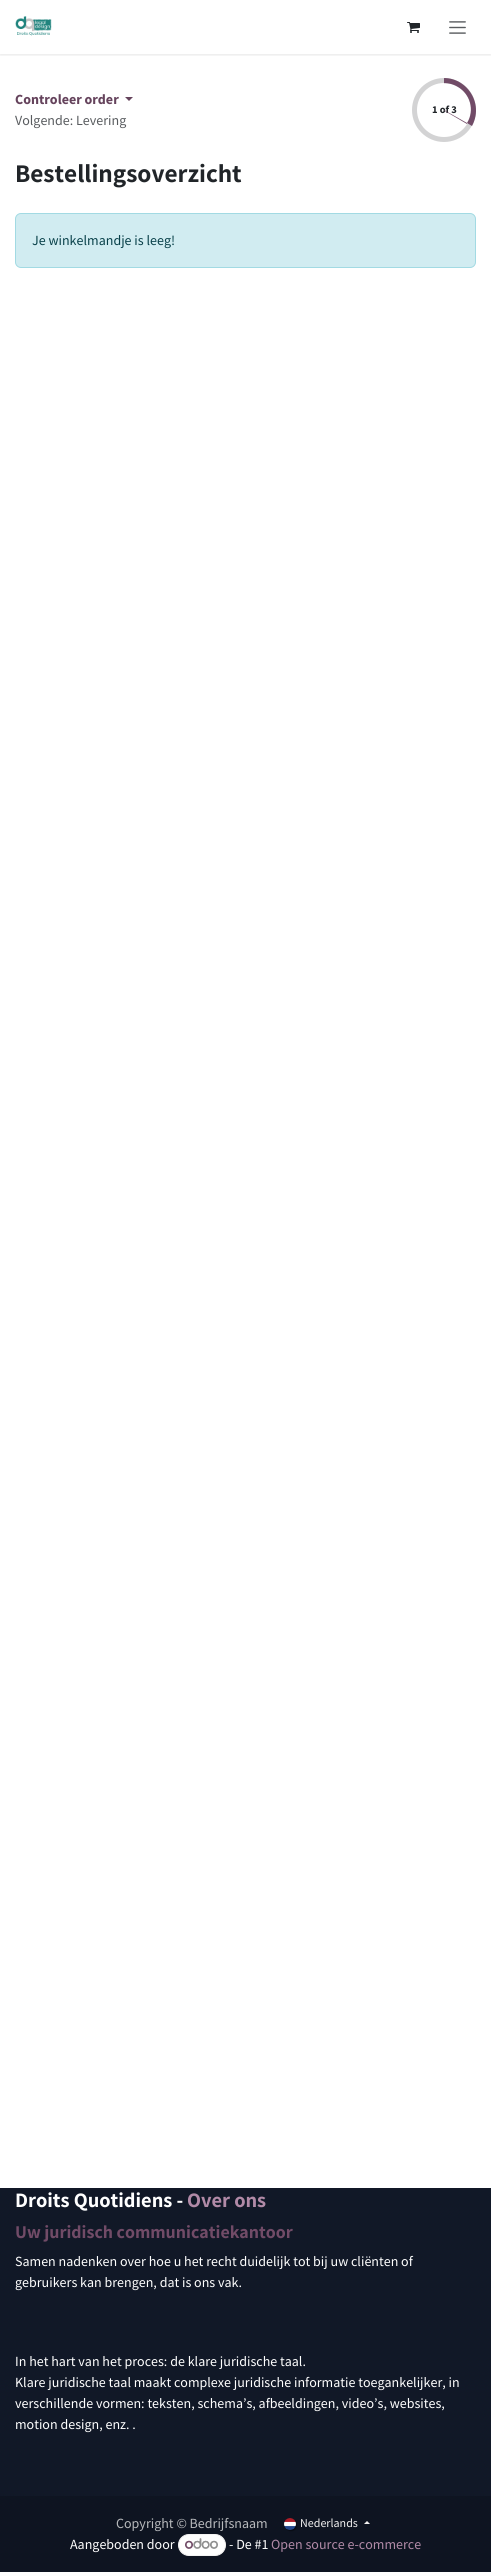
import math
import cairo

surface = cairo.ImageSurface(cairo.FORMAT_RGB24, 491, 2572)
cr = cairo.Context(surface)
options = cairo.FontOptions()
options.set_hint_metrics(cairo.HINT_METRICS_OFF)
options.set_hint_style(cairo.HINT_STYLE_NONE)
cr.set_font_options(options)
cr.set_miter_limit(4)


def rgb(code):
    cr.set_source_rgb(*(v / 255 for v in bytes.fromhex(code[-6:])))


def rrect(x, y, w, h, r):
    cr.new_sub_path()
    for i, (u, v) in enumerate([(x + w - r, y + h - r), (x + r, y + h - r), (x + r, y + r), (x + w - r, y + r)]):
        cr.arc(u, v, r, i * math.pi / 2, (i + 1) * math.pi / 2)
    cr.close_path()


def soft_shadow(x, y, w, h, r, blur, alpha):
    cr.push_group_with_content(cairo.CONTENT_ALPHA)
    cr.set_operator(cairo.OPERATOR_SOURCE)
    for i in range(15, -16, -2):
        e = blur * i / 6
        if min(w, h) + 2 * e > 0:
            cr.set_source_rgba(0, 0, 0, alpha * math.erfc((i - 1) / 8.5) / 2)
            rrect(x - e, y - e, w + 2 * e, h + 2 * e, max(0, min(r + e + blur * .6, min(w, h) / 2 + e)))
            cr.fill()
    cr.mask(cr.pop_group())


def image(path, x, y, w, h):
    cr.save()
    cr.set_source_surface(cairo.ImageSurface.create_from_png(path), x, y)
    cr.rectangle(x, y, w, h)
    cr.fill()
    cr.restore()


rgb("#ffffff")
cr.paint()
cr.save()
cr.rectangle(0, 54, 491, 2)
cr.clip()
rgb("#000000")
soft_shadow(0, 1, 491, 54, 0, 1.5, 0.1)
cr.restore()
image("img/1.png", 15, 16, 37, 20)
image("img/2.png", 407, 22, 13, 11)
image("img/3.png", 449, 21, 17, 13)
rgb("#65435c")
cr.new_path()
cr.move_to(125, 97)
cr.line_to(133, 97)
cr.line_to(129, 101)
cr.close_path()
cr.fill()
rgb("#d1ecf1")
rrect(15.5, 213.5, 460, 54, 5.5)
cr.fill_preserve()
rgb("#a2dae3")
cr.set_line_width(1)
cr.stroke()
rgb("#111827")
cr.rectangle(0, 2188, 491, 308)
cr.fill()
rgb("#0e1421")
cr.rectangle(0, 2496, 491, 76)
cr.fill()
rgb("#000000")
soft_shadow(285, 2519, 12, 12, 6, 0.5, 0.43)
image("img/4.png", 284, 2518, 12, 12)
rgb("#f3f2f2")
cr.new_path()
cr.move_to(370, 2524)
cr.line_to(364, 2524)
cr.line_to(367, 2521)
cr.close_path()
cr.fill()
rgb("#fefefe")
rrect(178.5, 2534.5, 47, 21, 10.5)
cr.fill_preserve()
rgb("#f3f2f2")
cr.stroke()
image("img/5.png", 185, 2538, 33, 11)
cr.select_font_face("Source Sans Pro", cairo.FONT_SLANT_NORMAL, cairo.FONT_WEIGHT_BOLD)
cr.set_font_size(14)
rgb("#65435c")
cr.move_to(15, 104)
cr.show_text("Controleer order")
cr.select_font_face("Source Sans Pro")
rgb("#595c5f")
cr.move_to(15, 125)
cr.show_text("Volgende: Levering")
cr.select_font_face("Source Sans Pro", cairo.FONT_SLANT_NORMAL, cairo.FONT_WEIGHT_BOLD)
cr.set_font_size(10.5)
rgb("#212529")
cr.move_to(432, 113)
cr.show_text("1 of 3")
cr.new_path()
cr.arc(444, 110, 29.5, 0, 2 * math.pi)
rgb("#d3d3d4")
cr.set_line_width(5)
cr.stroke()
cr.save()
cr.rectangle(444, 78, 32, 64)
cr.clip()
rgb("#714b67")
cr.set_fill_rule(cairo.FILL_RULE_EVEN_ODD)
cr.new_path()
cr.move_to(416, 94)
cr.curve_to(420, 88, 426, 83, 433, 80)
cr.curve_to(461, 70, 486, 100, 472, 126)
cr.line_to(467, 123)
cr.curve_to(475, 110, 470, 94, 458, 87)
cr.curve_to(445, 79, 428, 84, 421, 97)
cr.close_path()
cr.move_to(467, 124)
cr.line_to(467, 123)
cr.line_to(421, 97)
cr.close_path()
cr.fill()
cr.restore()
cr.select_font_face("Assistant", cairo.FONT_SLANT_NORMAL, cairo.FONT_WEIGHT_BOLD)
cr.set_font_size(25.4)
rgb("#212529")
cr.move_to(15, 182)
cr.show_text("Bestellingsoverzicht")
cr.select_font_face("Source Sans Pro")
cr.set_font_size(14)
rgb("#09414a")
cr.move_to(32, 245)
cr.show_text("Je winkelmandje is leeg!")
cr.select_font_face("Assistant", cairo.FONT_SLANT_NORMAL, cairo.FONT_WEIGHT_BOLD)
cr.set_font_size(20.5)
rgb("#ffffff")
cr.move_to(15, 2207)
cr.show_text("Droits Quotidiens -")
rgb("#b18aa7")
cr.move_to(187, 2207)
cr.show_text("Over ons")
cr.set_font_size(18)
rgb("#714b67")
cr.move_to(15, 2238)
cr.show_text("Uw juridisch communicatiekantoor")
cr.select_font_face("Source Sans Pro")
cr.set_font_size(14)
rgb("#ffffff")
for x, y, s in [
    (15, 2266, "Samen nadenken over hoe u het recht duidelijk tot bij uw cliënten of"),
    (15, 2287, "gebruikers kan brengen, dat is ons vak."),
    (15, 2366, "In het hart van het proces: de klare juridische taal."),
    (15, 2387, "Klare juridische taal maakt complexe juridische informatie toegankelijker, in"),
    (15, 2408, "verschillende vormen: teksten, schema’s, afbeeldingen, video’s, websites,"),
    (15, 2429, "motion design, enz. ."),
]:
    cr.move_to(x, y)
    cr.show_text(s)
rgb("#b7b9bc")
cr.move_to(116, 2528)
cr.show_text("Copyright © Bedrijfsnaam")
cr.set_font_size(12)
rgb("#f3f2f2")
cr.move_to(300, 2527)
cr.show_text("Nederlands")
cr.set_font_size(14)
rgb("#ffffff")
cr.move_to(70, 2549)
cr.show_text("Aangeboden door")
cr.move_to(229, 2549)
cr.show_text("- De #1")
rgb("#b18aa7")
cr.move_to(271, 2549)
cr.show_text("Open source e-commerce")
surface.write_to_png("page.png")
